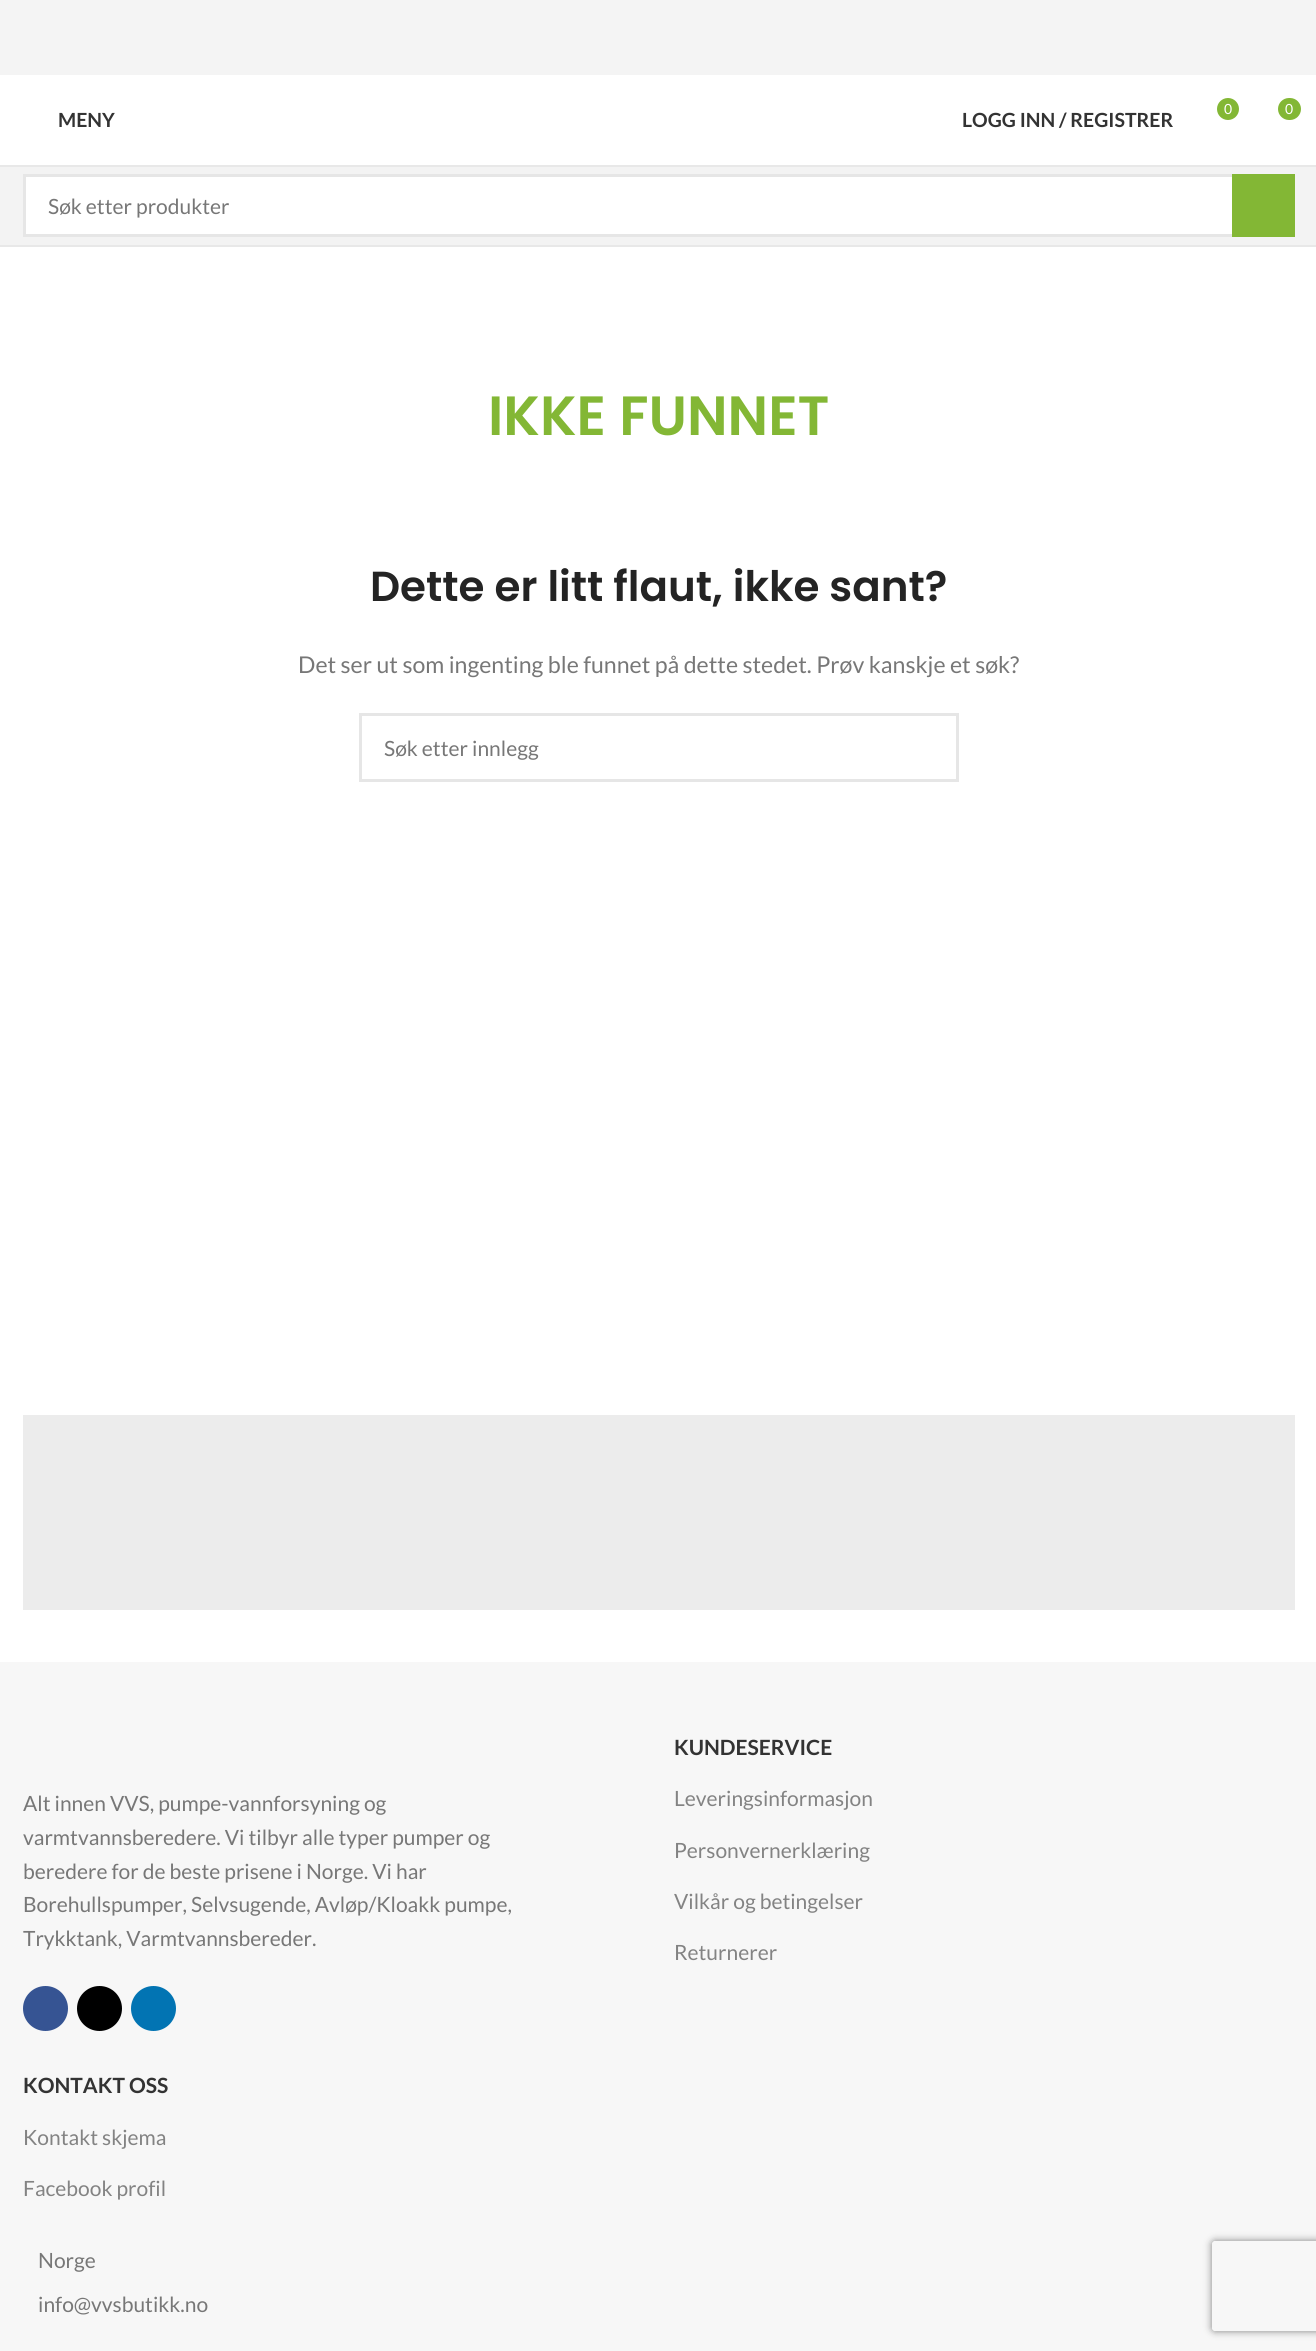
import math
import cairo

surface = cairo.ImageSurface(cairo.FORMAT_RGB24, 1316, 2351)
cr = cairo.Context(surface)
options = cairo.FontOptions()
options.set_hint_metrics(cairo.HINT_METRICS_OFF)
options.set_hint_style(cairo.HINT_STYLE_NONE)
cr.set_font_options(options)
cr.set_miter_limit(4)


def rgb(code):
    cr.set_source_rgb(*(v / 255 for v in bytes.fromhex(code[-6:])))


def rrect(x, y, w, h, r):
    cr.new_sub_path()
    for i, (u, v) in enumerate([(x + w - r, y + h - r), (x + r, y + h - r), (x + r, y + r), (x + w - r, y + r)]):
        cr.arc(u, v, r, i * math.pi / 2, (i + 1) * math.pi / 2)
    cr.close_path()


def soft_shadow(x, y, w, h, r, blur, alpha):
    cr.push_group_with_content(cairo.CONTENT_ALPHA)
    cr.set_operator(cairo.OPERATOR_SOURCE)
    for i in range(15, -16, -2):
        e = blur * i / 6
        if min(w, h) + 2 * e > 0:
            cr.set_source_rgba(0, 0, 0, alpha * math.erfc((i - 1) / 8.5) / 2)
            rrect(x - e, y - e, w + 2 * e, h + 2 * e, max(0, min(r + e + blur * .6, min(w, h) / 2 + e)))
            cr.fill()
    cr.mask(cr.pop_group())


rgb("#ffffff")
cr.paint()
rgb("#f4f4f4")
cr.rectangle(0, 0, 1316, 75)
cr.fill()
rgb("#e8e8e8")
cr.rectangle(0, 165, 1316, 2)
cr.fill()
rgb("#83b735")
cr.arc(1228, 109, 11, 0, 2 * math.pi)
cr.fill()
rrect(1278, 98, 23, 22, 11)
cr.fill()
for x, y, w, h, color in [
    (0, 167, 1316, 78, "#f3f3f3"),
    (0, 245, 1316, 2, "#e8e8e8"),
    (26, 177, 1206, 57, "#ffffff"),
]:
    rgb(color)
    cr.rectangle(x, y, w, h)
    cr.fill()
cr.rectangle(24.5, 175.5, 1269, 60)
rgb("#e6e6e6")
cr.set_line_width(3)
cr.stroke()
rgb("#83b735")
cr.rectangle(1232, 174, 63, 63)
cr.fill()
cr.rectangle(360.5, 714.5, 597, 66)
rgb("#e6e6e6")
cr.stroke()
rgb("#ececec")
cr.rectangle(23, 1415, 1272, 195)
cr.fill()
rgb("#f7f7f7")
cr.rectangle(0, 1662, 1316, 689)
cr.fill()
rgb("#365493")
cr.arc(45.5, 2008.5, 22.5, 0, 2 * math.pi)
cr.fill()
rgb("#000000")
cr.arc(99.5, 2008.5, 22.5, 0, 2 * math.pi)
cr.fill()
rgb("#0274b3")
cr.arc(153.5, 2008.5, 22.5, 0, 2 * math.pi)
cr.fill()
cr.save()
cr.set_fill_rule(cairo.FILL_RULE_EVEN_ODD)
cr.new_path()
cr.move_to(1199, 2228)
cr.line_to(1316, 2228)
cr.line_to(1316, 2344)
cr.line_to(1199, 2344)
cr.close_path()
cr.move_to(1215, 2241)
cr.line_to(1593, 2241)
cr.curve_to(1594.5, 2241, 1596, 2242.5, 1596, 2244)
cr.line_to(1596, 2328)
cr.curve_to(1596, 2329.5, 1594.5, 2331, 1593, 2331)
cr.line_to(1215, 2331)
cr.curve_to(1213.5, 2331, 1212, 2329.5, 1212, 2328)
cr.line_to(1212, 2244)
cr.curve_to(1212, 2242.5, 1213.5, 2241, 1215, 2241)
cr.close_path()
cr.clip()
rgb("#808080")
soft_shadow(1212, 2241, 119, 90, 3, 4, 1)
cr.restore()
cr.select_font_face("Lato", cairo.FONT_SLANT_NORMAL, cairo.FONT_WEIGHT_BOLD)
cr.set_font_size(19.5)
rgb("#333333")
cr.move_to(58, 127)
cr.show_text("MENY")
cr.select_font_face("Lato")
cr.set_font_size(14)
rgb("#ffffff")
cr.move_to(1224, 114)
cr.show_text("0")
cr.move_to(1285, 114)
cr.show_text("0")
cr.select_font_face("Lato", cairo.FONT_SLANT_NORMAL, cairo.FONT_WEIGHT_BOLD)
cr.set_font_size(19.5)
rgb("#333333")
cr.move_to(962, 127)
cr.show_text("LOGG INN / REGISTRER")
cr.select_font_face("Lato")
cr.set_font_size(21)
rgb("#777777")
cr.move_to(48, 214)
cr.show_text("Søk etter produkter")
cr.select_font_face("Poppins SemiBold")
cr.set_font_size(55.25)
rgb("#83b735")
cr.move_to(488, 435)
cr.show_text("IKKE FUNNET")
cr.set_font_size(42)
rgb("#242424")
cr.move_to(370, 601)
cr.show_text("Dette er litt flaut, ikke sant?")
cr.select_font_face("Lato")
cr.set_font_size(23.1)
rgb("#777777")
cr.move_to(298, 673)
cr.show_text("Det ser ut som ingenting ble funnet på dette stedet. Prøv kanskje et søk?")
cr.set_font_size(21)
for x, y, s in [
    (384, 756, "Søk etter innlegg"),
    (23, 1811, "Alt innen VVS, pumpe-vannforsyning og"),
    (23, 1845, "varmtvannsberedere. Vi tilbyr alle typer pumper og"),
    (23, 1879, "beredere for de beste prisene i Norge. Vi har"),
    (23, 1912, "Borehullspumper, Selvsugende, Avløp/Kloakk pumpe,"),
    (23, 1946, "Trykktank, Varmtvannsbereder."),
]:
    cr.move_to(x, y)
    cr.show_text(s)
cr.select_font_face("Lato", cairo.FONT_SLANT_NORMAL, cairo.FONT_WEIGHT_BOLD)
rgb("#333333")
cr.move_to(674, 1755)
cr.show_text("KUNDESERVICE")
cr.select_font_face("Lato")
rgb("#838383")
for x, y, s in [
    (674, 1806, "Leveringsinformasjon"),
    (674, 1858, "Personvernerklæring"),
    (674, 1909, "Vilkår og betingelser"),
    (674, 1960, "Returnerer"),
]:
    cr.move_to(x, y)
    cr.show_text(s)
cr.select_font_face("Lato", cairo.FONT_SLANT_NORMAL, cairo.FONT_WEIGHT_BOLD)
rgb("#333333")
cr.move_to(23, 2093)
cr.show_text("KONTAKT OSS")
cr.select_font_face("Lato")
rgb("#838383")
cr.move_to(23, 2145)
cr.show_text("Kontakt skjema")
cr.move_to(23, 2196)
cr.show_text("Facebook profil")
rgb("#777777")
cr.move_to(38, 2268)
cr.show_text("Norge")
cr.move_to(38, 2312)
cr.show_text("info@vvsbutikk.no")
surface.write_to_png("page.png")
